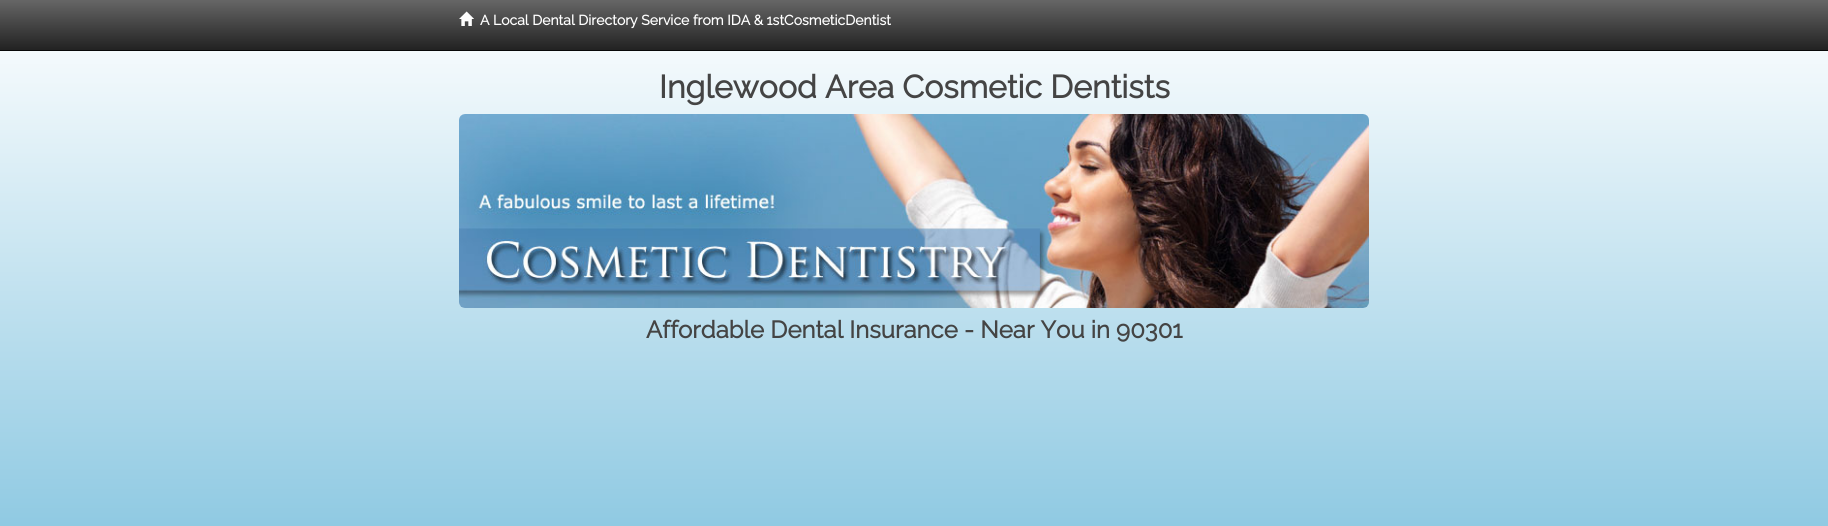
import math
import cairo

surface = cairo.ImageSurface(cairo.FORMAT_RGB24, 1828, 526)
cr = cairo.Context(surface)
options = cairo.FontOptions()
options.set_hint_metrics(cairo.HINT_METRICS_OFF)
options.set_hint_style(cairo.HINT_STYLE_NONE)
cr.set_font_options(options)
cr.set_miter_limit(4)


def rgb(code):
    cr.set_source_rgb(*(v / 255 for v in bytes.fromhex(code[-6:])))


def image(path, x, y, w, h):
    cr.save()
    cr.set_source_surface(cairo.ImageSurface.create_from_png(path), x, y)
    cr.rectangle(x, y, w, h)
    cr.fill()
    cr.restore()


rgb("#ffffff")
cr.paint()
gradient = cairo.LinearGradient(914, 0, 914, 50)
gradient.add_color_stop_rgba(0, 0.4, 0.4, 0.4, 1)
gradient.add_color_stop_rgba(1, 0.133, 0.133, 0.133, 1)
cr.set_source(gradient)
cr.rectangle(0, 0, 1828, 50)
cr.fill()
rgb("#080808")
cr.rectangle(0, 50, 1828, 1)
cr.fill()
image("img/1.png", 459, 11, 15, 15)
gradient = cairo.LinearGradient(914, 0, 914, 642)
gradient.add_color_stop_rgba(0, 1, 1, 1, 1)
gradient.add_color_stop_rgba(1, 0.467, 0.745, 0.863, 1)
cr.set_source(gradient)
cr.rectangle(0, 51, 1828, 475)
cr.fill()
image("img/2.png", 459, 114, 910, 194)
cr.select_font_face("Raleway", cairo.FONT_SLANT_NORMAL, cairo.FONT_WEIGHT_BOLD)
cr.set_font_size(14)
rgb("#ffffff")
cr.move_to(480, 25)
cr.show_text("A Local Dental Directory Service from IDA & 1stCosmeticDentist")
cr.set_font_size(32)
rgb("#444444")
cr.move_to(659, 98)
cr.show_text("Inglewood Area Cosmetic Dentists")
cr.set_font_size(24)
cr.move_to(646, 338)
cr.show_text("Affordable Dental Insurance - Near You in 90301")
surface.write_to_png("page.png")
